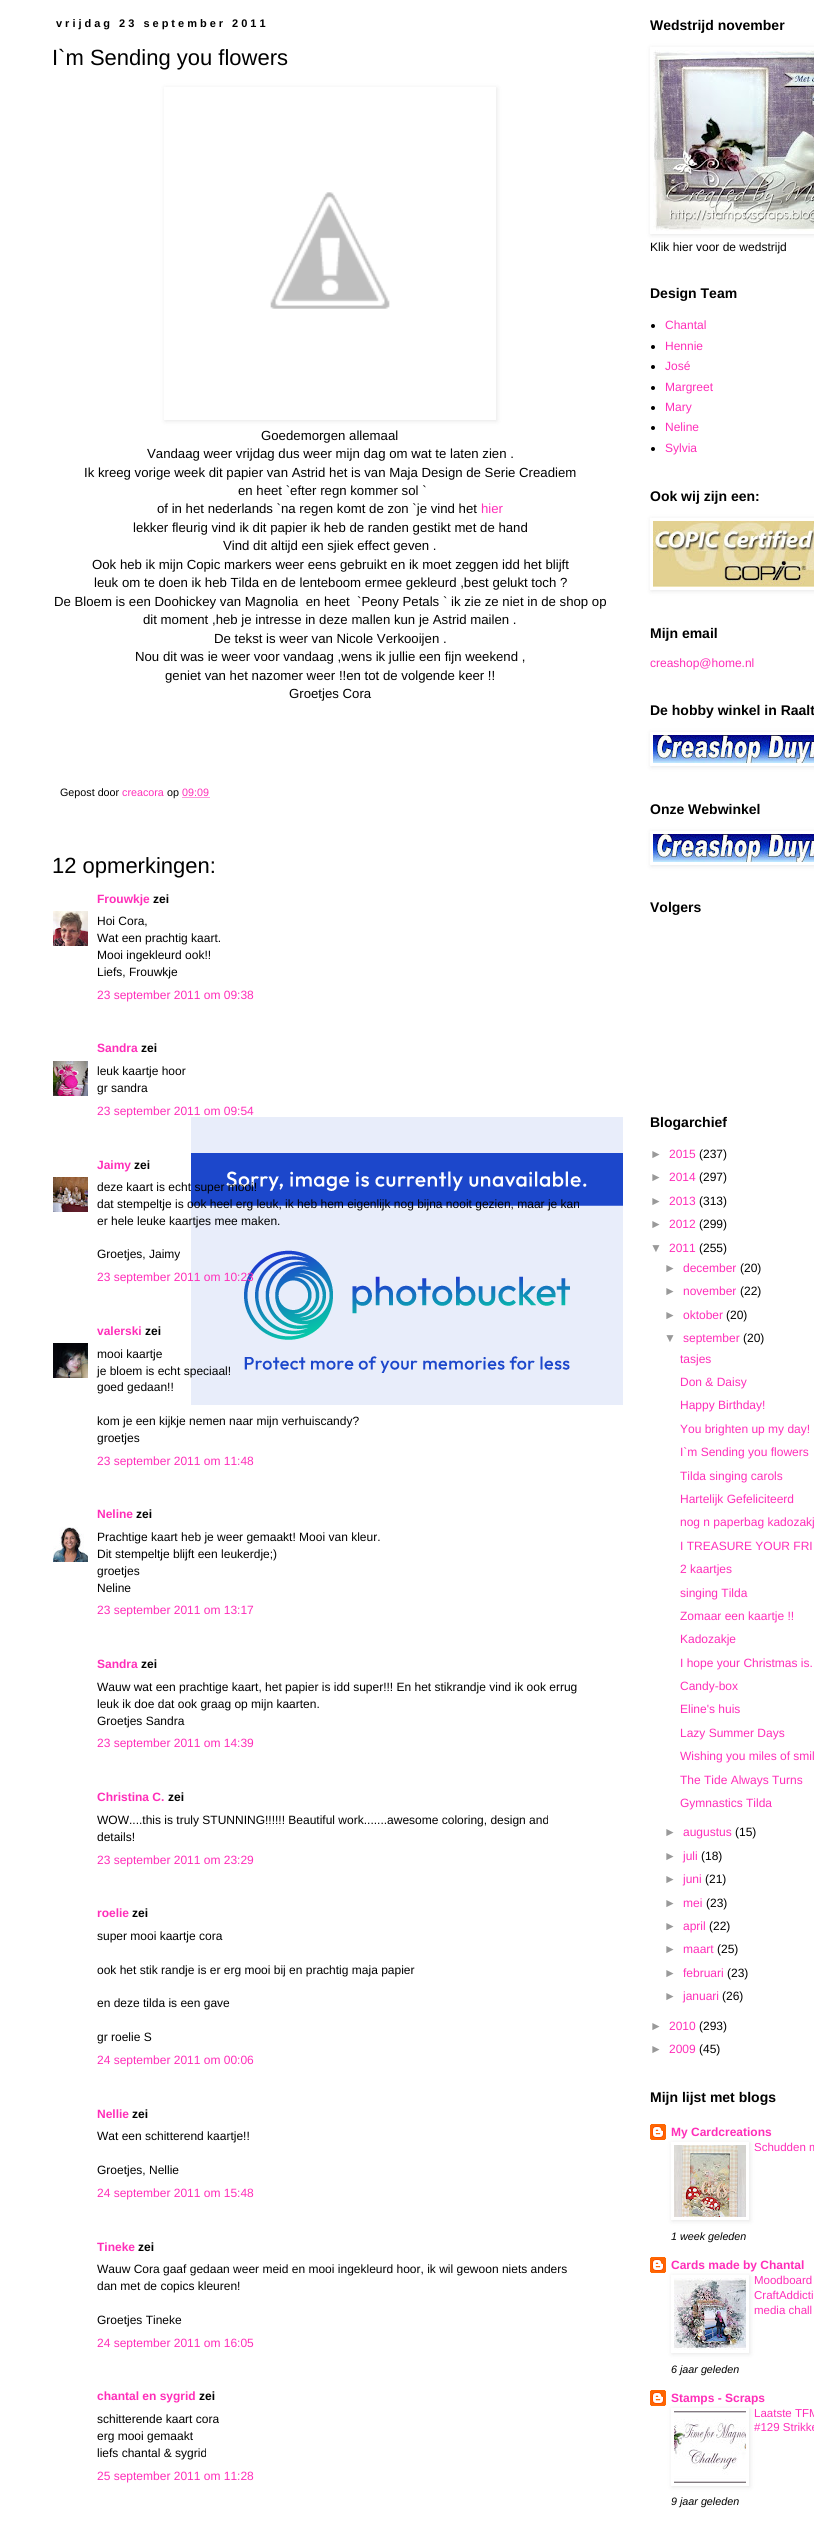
import math
import cairo

surface = cairo.ImageSurface(cairo.FORMAT_RGB24, 814, 2522)
cr = cairo.Context(surface)
options = cairo.FontOptions()
options.set_hint_metrics(cairo.HINT_METRICS_OFF)
options.set_hint_style(cairo.HINT_STYLE_NONE)
cr.set_font_options(options)
cr.set_miter_limit(4)


def rgb(code):
    cr.set_source_rgb(*(v / 255 for v in bytes.fromhex(code[-6:])))


def tracked(x, y, s, letter, word):
    cr.move_to(x, y)
    for ch in s:
        cr.show_text(ch)
        cr.rel_move_to(letter + word * (ch == ' '), 0)


def rrect(x, y, w, h, r):
    cr.new_sub_path()
    for i, (u, v) in enumerate([(x + w - r, y + h - r), (x + r, y + h - r), (x + r, y + r), (x + w - r, y + r)]):
        cr.arc(u, v, r, i * math.pi / 2, (i + 1) * math.pi / 2)
    cr.close_path()


def soft_shadow(x, y, w, h, r, blur, alpha):
    cr.push_group_with_content(cairo.CONTENT_ALPHA)
    cr.set_operator(cairo.OPERATOR_SOURCE)
    for i in range(15, -16, -2):
        e = blur * i / 6
        if min(w, h) + 2 * e > 0:
            cr.set_source_rgba(0, 0, 0, alpha * math.erfc((i - 1) / 8.5) / 2)
            rrect(x - e, y - e, w + 2 * e, h + 2 * e, max(0, min(r + e + blur * .6, min(w, h) / 2 + e)))
            cr.fill()
    cr.mask(cr.pop_group())


def image(path, x, y, w, h):
    cr.save()
    cr.set_source_surface(cairo.ImageSurface.create_from_png(path), x, y)
    cr.rectangle(x, y, w, h)
    cr.fill()
    cr.restore()


rgb("#ffffff")
cr.paint()
image("img/1.png", 191, 1117, 432, 288)
cr.save()
cr.set_fill_rule(cairo.FILL_RULE_EVEN_ODD)
cr.new_path()
cr.move_to(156, 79)
cr.line_to(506, 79)
cr.line_to(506, 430)
cr.line_to(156, 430)
cr.close_path()
cr.move_to(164, 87)
cr.line_to(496, 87)
cr.line_to(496, 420)
cr.line_to(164, 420)
cr.close_path()
cr.clip()
rgb("#000000")
soft_shadow(165, 88, 332, 333, 0, 2.5, 0.1)
cr.restore()
image("img/2.png", 270, 192, 120, 117)
cr.new_path()
cr.move_to(182.5, 797.5)
cr.line_to(209.5, 797.5)
rgb("#ff2eb9")
cr.set_line_width(1)
cr.set_dash([1, 1])
cr.stroke()
image("img/3.png", 53, 911, 35, 35)
image("img/4.png", 53, 1061, 35, 35)
image("img/5.png", 53, 1177, 35, 35)
image("img/6.png", 53, 1343, 35, 35)
image("img/7.png", 53, 1527, 35, 35)
cr.save()
cr.set_fill_rule(cairo.FILL_RULE_EVEN_ODD)
cr.new_path()
cr.move_to(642, 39)
cr.line_to(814, 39)
cr.line_to(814, 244)
cr.line_to(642, 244)
cr.close_path()
cr.move_to(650, 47)
cr.line_to(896, 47)
cr.line_to(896, 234)
cr.line_to(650, 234)
cr.close_path()
cr.clip()
rgb("#000000")
soft_shadow(651, 48, 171, 187, 0, 2.5, 0.1)
cr.restore()
image("img/8.png", 653, 50, 161, 181)
rgb("#000000")
cr.arc(653, 326, 2, 0, 2 * math.pi)
cr.fill()
cr.arc(653, 347, 2, 0, 2 * math.pi)
cr.fill()
cr.arc(653, 367, 2, 0, 2 * math.pi)
cr.fill()
cr.arc(653, 388, 2, 0, 2 * math.pi)
cr.fill()
cr.arc(653, 408, 2, 0, 2 * math.pi)
cr.fill()
cr.arc(653, 428, 2, 0, 2 * math.pi)
cr.fill()
cr.arc(653, 449, 2, 0, 2 * math.pi)
cr.fill()
cr.save()
cr.set_fill_rule(cairo.FILL_RULE_EVEN_ODD)
cr.new_path()
cr.move_to(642, 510)
cr.line_to(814, 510)
cr.line_to(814, 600)
cr.line_to(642, 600)
cr.close_path()
cr.move_to(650, 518)
cr.line_to(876, 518)
cr.line_to(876, 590)
cr.line_to(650, 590)
cr.close_path()
cr.clip()
rgb("#000000")
soft_shadow(651, 519, 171, 72, 0, 2.5, 0.1)
cr.restore()
image("img/9.png", 653, 521, 161, 66)
cr.save()
cr.set_fill_rule(cairo.FILL_RULE_EVEN_ODD)
cr.new_path()
cr.move_to(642, 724)
cr.line_to(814, 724)
cr.line_to(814, 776)
cr.line_to(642, 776)
cr.close_path()
cr.move_to(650, 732)
cr.line_to(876, 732)
cr.line_to(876, 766)
cr.line_to(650, 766)
cr.close_path()
cr.clip()
rgb("#000000")
soft_shadow(651, 733, 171, 34, 0, 2.5, 0.1)
cr.restore()
image("img/10.png", 653, 735, 161, 28)
cr.save()
cr.set_fill_rule(cairo.FILL_RULE_EVEN_ODD)
cr.new_path()
cr.move_to(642, 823)
cr.line_to(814, 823)
cr.line_to(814, 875)
cr.line_to(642, 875)
cr.close_path()
cr.move_to(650, 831)
cr.line_to(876, 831)
cr.line_to(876, 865)
cr.line_to(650, 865)
cr.close_path()
cr.clip()
rgb("#000000")
soft_shadow(651, 832, 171, 34, 0, 2.5, 0.1)
cr.restore()
image("img/10.png", 653, 834, 161, 28)
image("img/11.png", 650, 2124, 16, 16)
cr.save()
cr.set_fill_rule(cairo.FILL_RULE_EVEN_ODD)
cr.new_path()
cr.move_to(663, 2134)
cr.line_to(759, 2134)
cr.line_to(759, 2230)
cr.line_to(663, 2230)
cr.close_path()
cr.move_to(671, 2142)
cr.line_to(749, 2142)
cr.line_to(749, 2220)
cr.line_to(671, 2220)
cr.close_path()
cr.clip()
rgb("#000000")
soft_shadow(672, 2143, 78, 78, 0, 2.5, 0.1)
cr.restore()
image("img/12.png", 674, 2145, 72, 72)
image("img/11.png", 650, 2257, 16, 16)
cr.save()
cr.set_fill_rule(cairo.FILL_RULE_EVEN_ODD)
cr.new_path()
cr.move_to(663, 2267)
cr.line_to(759, 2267)
cr.line_to(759, 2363)
cr.line_to(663, 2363)
cr.close_path()
cr.move_to(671, 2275)
cr.line_to(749, 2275)
cr.line_to(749, 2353)
cr.line_to(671, 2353)
cr.close_path()
cr.clip()
rgb("#000000")
soft_shadow(672, 2276, 78, 78, 0, 2.5, 0.1)
cr.restore()
image("img/13.png", 674, 2278, 72, 72)
image("img/11.png", 650, 2390, 16, 16)
cr.save()
cr.set_fill_rule(cairo.FILL_RULE_EVEN_ODD)
cr.new_path()
cr.move_to(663, 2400)
cr.line_to(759, 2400)
cr.line_to(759, 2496)
cr.line_to(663, 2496)
cr.close_path()
cr.move_to(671, 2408)
cr.line_to(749, 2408)
cr.line_to(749, 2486)
cr.line_to(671, 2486)
cr.close_path()
cr.clip()
rgb("#000000")
soft_shadow(672, 2409, 78, 78, 0, 2.5, 0.1)
cr.restore()
image("img/14.png", 674, 2411, 72, 72)
cr.select_font_face("Liberation Sans", cairo.FONT_SLANT_NORMAL, cairo.FONT_WEIGHT_BOLD)
cr.set_font_size(11)
tracked(56, 27, "vrijdag 23 september 2011", 3, 0)
cr.select_font_face("Liberation Sans")
cr.set_font_size(22)
cr.move_to(52, 65)
cr.show_text("I`m Sending you flowers")
cr.set_font_size(13.2)
for x, y, s in [
    (261, 440, "Goedemorgen allemaal"),
    (147, 458, "Vandaag weer vrijdag dus weer mijn dag om wat te laten zien ."),
    (84, 477, "Ik kreeg vorige week dit papier van Astrid het is van Maja Design de Serie Creadiem"),
    (238, 495, "en heet `efter regn kommer sol `"),
    (157, 513, "of in het nederlands `na regen komt de zon `je vind het"),
]:
    cr.move_to(x, y)
    cr.show_text(s)
rgb("#ff2eb9")
cr.move_to(481, 513)
cr.show_text("hier")
rgb("#000000")
for x, y, s in [
    (133, 532, "lekker fleurig vind ik dit papier ik heb de randen gestikt met de hand"),
    (223, 550, "Vind dit altijd een sjiek effect geven ."),
    (92, 569, "Ook heb ik mijn Copic markers weer eens gebruikt en ik moet zeggen idd het blijft"),
    (94, 587, "leuk om te doen ik heb Tilda en de lenteboom ermee gekleurd ,best gelukt toch ?"),
    (54, 606, "De Bloem is een Doohickey van Magnolia  en heet  `Peony Petals ` ik zie ze niet in de shop op"),
    (143, 624, "dit moment ,heb je intresse in deze mallen kun je Astrid mailen ."),
    (214, 643, "De tekst is weer van Nicole Verkooijen ."),
    (135, 661, "Nou dit was ie weer voor vandaag ,wens ik jullie een fijn weekend ,"),
    (165, 680, "geniet van het nazomer weer !!en tot de volgende keer !!"),
    (289, 698, "Groetjes Cora"),
]:
    cr.move_to(x, y)
    cr.show_text(s)
cr.set_font_size(10.75)
cr.move_to(60, 796)
cr.show_text("Gepost door")
rgb("#ff2eb9")
cr.move_to(122, 796)
cr.show_text("creacora")
rgb("#000000")
cr.move_to(167, 796)
cr.show_text("op")
rgb("#ff2eb9")
cr.move_to(182, 796)
cr.show_text("09:09")
cr.set_font_size(22)
rgb("#000000")
cr.move_to(52, 873)
cr.show_text("12 opmerkingen:")
cr.select_font_face("Liberation Sans", cairo.FONT_SLANT_NORMAL, cairo.FONT_WEIGHT_BOLD)
cr.set_font_size(12)
rgb("#ff2eb9")
cr.move_to(97, 903)
cr.show_text("Frouwkje")
rgb("#000000")
cr.move_to(153, 903)
cr.show_text("zei")
cr.select_font_face("Liberation Sans")
for x, y, s in [
    (97, 925, "Hoi Cora,"),
    (97, 942, "Wat een prachtig kaart."),
    (97, 959, "Mooi ingekleurd ook!!"),
    (97, 976, "Liefs, Frouwkje"),
]:
    cr.move_to(x, y)
    cr.show_text(s)
rgb("#ff2eb9")
cr.move_to(97, 999)
cr.show_text("23 september 2011 om 09:38")
cr.select_font_face("Liberation Sans", cairo.FONT_SLANT_NORMAL, cairo.FONT_WEIGHT_BOLD)
cr.move_to(97, 1052)
cr.show_text("Sandra")
rgb("#000000")
cr.move_to(141, 1052)
cr.show_text("zei")
cr.select_font_face("Liberation Sans")
cr.move_to(97, 1075)
cr.show_text("leuk kaartje hoor")
cr.move_to(97, 1092)
cr.show_text("gr sandra")
rgb("#ff2eb9")
cr.move_to(97, 1115)
cr.show_text("23 september 2011 om 09:54")
cr.select_font_face("Liberation Sans", cairo.FONT_SLANT_NORMAL, cairo.FONT_WEIGHT_BOLD)
cr.move_to(97, 1169)
cr.show_text("Jaimy")
rgb("#000000")
cr.move_to(134, 1169)
cr.show_text("zei")
cr.select_font_face("Liberation Sans")
for x, y, s in [
    (97, 1191, "deze kaart is echt super mooi!"),
    (97, 1208, "dat stempeltje is ook heel erg leuk, ik heb hem eigenlijk nog bijna nooit gezien, maar je kan"),
    (97, 1225, "er hele leuke kaartjes mee maken."),
    (97, 1258, "Groetjes, Jaimy"),
]:
    cr.move_to(x, y)
    cr.show_text(s)
rgb("#ff2eb9")
cr.move_to(97, 1281)
cr.show_text("23 september 2011 om 10:23")
cr.select_font_face("Liberation Sans", cairo.FONT_SLANT_NORMAL, cairo.FONT_WEIGHT_BOLD)
cr.move_to(97, 1335)
cr.show_text("valerski")
rgb("#000000")
cr.move_to(145, 1335)
cr.show_text("zei")
cr.select_font_face("Liberation Sans")
for x, y, s in [
    (97, 1358, "mooi kaartje"),
    (97, 1375, "je bloem is echt speciaal!"),
    (97, 1391, "goed gedaan!!"),
    (97, 1425, "kom je een kijkje nemen naar mijn verhuiscandy?"),
    (97, 1442, "groetjes"),
]:
    cr.move_to(x, y)
    cr.show_text(s)
rgb("#ff2eb9")
cr.move_to(97, 1465)
cr.show_text("23 september 2011 om 11:48")
cr.select_font_face("Liberation Sans", cairo.FONT_SLANT_NORMAL, cairo.FONT_WEIGHT_BOLD)
cr.move_to(97, 1518)
cr.show_text("Neline")
rgb("#000000")
cr.move_to(136, 1518)
cr.show_text("zei")
cr.select_font_face("Liberation Sans")
for x, y, s in [
    (97, 1541, "Prachtige kaart heb je weer gemaakt! Mooi van kleur."),
    (97, 1558, "Dit stempeltje blijft een leukerdje;)"),
    (97, 1575, "groetjes"),
    (97, 1592, "Neline"),
]:
    cr.move_to(x, y)
    cr.show_text(s)
rgb("#ff2eb9")
cr.move_to(97, 1614)
cr.show_text("23 september 2011 om 13:17")
cr.select_font_face("Liberation Sans", cairo.FONT_SLANT_NORMAL, cairo.FONT_WEIGHT_BOLD)
cr.move_to(97, 1668)
cr.show_text("Sandra")
rgb("#000000")
cr.move_to(141, 1668)
cr.show_text("zei")
cr.select_font_face("Liberation Sans")
for x, y, s in [
    (97, 1691, "Wauw wat een prachtige kaart, het papier is idd super!!! En het stikrandje vind ik ook errug"),
    (97, 1708, "leuk ik doe dat ook graag op mijn kaarten."),
    (97, 1725, "Groetjes Sandra"),
]:
    cr.move_to(x, y)
    cr.show_text(s)
rgb("#ff2eb9")
cr.move_to(97, 1747)
cr.show_text("23 september 2011 om 14:39")
cr.select_font_face("Liberation Sans", cairo.FONT_SLANT_NORMAL, cairo.FONT_WEIGHT_BOLD)
cr.move_to(97, 1801)
cr.show_text("Christina C.")
rgb("#000000")
cr.move_to(168, 1801)
cr.show_text("zei")
cr.select_font_face("Liberation Sans")
cr.move_to(97, 1824)
cr.show_text("WOW....this is truly STUNNING!!!!!! Beautiful work.......awesome coloring, design and")
cr.move_to(97, 1841)
cr.show_text("details!")
rgb("#ff2eb9")
cr.move_to(97, 1864)
cr.show_text("23 september 2011 om 23:29")
cr.select_font_face("Liberation Sans", cairo.FONT_SLANT_NORMAL, cairo.FONT_WEIGHT_BOLD)
cr.move_to(97, 1917)
cr.show_text("roelie")
rgb("#000000")
cr.move_to(132, 1917)
cr.show_text("zei")
cr.select_font_face("Liberation Sans")
for x, y, s in [
    (97, 1940, "super mooi kaartje cora"),
    (97, 1974, "ook het stik randje is er erg mooi bij en prachtig maja papier"),
    (97, 2007, "en deze tilda is een gave"),
    (97, 2041, "gr roelie S"),
]:
    cr.move_to(x, y)
    cr.show_text(s)
rgb("#ff2eb9")
cr.move_to(97, 2064)
cr.show_text("24 september 2011 om 00:06")
cr.select_font_face("Liberation Sans", cairo.FONT_SLANT_NORMAL, cairo.FONT_WEIGHT_BOLD)
cr.move_to(97, 2118)
cr.show_text("Nellie")
rgb("#000000")
cr.move_to(132, 2118)
cr.show_text("zei")
cr.select_font_face("Liberation Sans")
cr.move_to(97, 2140)
cr.show_text("Wat een schitterend kaartje!!")
cr.move_to(97, 2174)
cr.show_text("Groetjes, Nellie")
rgb("#ff2eb9")
cr.move_to(97, 2197)
cr.show_text("24 september 2011 om 15:48")
cr.select_font_face("Liberation Sans", cairo.FONT_SLANT_NORMAL, cairo.FONT_WEIGHT_BOLD)
cr.move_to(97, 2251)
cr.show_text("Tineke")
rgb("#000000")
cr.move_to(138, 2251)
cr.show_text("zei")
cr.select_font_face("Liberation Sans")
for x, y, s in [
    (97, 2273, "Wauw Cora gaaf gedaan weer meid en mooi ingekleurd hoor, ik wil gewoon niets anders"),
    (97, 2290, "dan met de copics kleuren!"),
    (97, 2324, "Groetjes Tineke"),
]:
    cr.move_to(x, y)
    cr.show_text(s)
rgb("#ff2eb9")
cr.move_to(97, 2347)
cr.show_text("24 september 2011 om 16:05")
cr.select_font_face("Liberation Sans", cairo.FONT_SLANT_NORMAL, cairo.FONT_WEIGHT_BOLD)
cr.move_to(97, 2400)
cr.show_text("chantal en sygrid")
rgb("#000000")
cr.move_to(199, 2400)
cr.show_text("zei")
cr.select_font_face("Liberation Sans")
for x, y, s in [
    (97, 2423, "schitterende kaart cora"),
    (97, 2440, "erg mooi gemaakt"),
    (97, 2457, "liefs chantal & sygrid"),
]:
    cr.move_to(x, y)
    cr.show_text(s)
rgb("#ff2eb9")
cr.move_to(97, 2480)
cr.show_text("25 september 2011 om 11:28")
cr.select_font_face("Liberation Sans", cairo.FONT_SLANT_NORMAL, cairo.FONT_WEIGHT_BOLD)
cr.set_font_size(14)
rgb("#000000")
cr.move_to(650, 30)
cr.show_text("Wedstrijd november")
cr.select_font_face("Liberation Sans")
cr.set_font_size(12)
cr.move_to(650, 251)
cr.show_text("Klik hier voor de wedstrijd")
cr.select_font_face("Liberation Sans", cairo.FONT_SLANT_NORMAL, cairo.FONT_WEIGHT_BOLD)
cr.set_font_size(14)
cr.move_to(650, 298)
cr.show_text("Design Team")
cr.select_font_face("Liberation Sans")
cr.set_font_size(12)
rgb("#ff2eb9")
for x, y, s in [
    (665, 329, "Chantal"),
    (665, 350, "Hennie"),
    (665, 370, "José"),
    (665, 391, "Margreet"),
    (665, 411, "Mary"),
    (665, 431, "Neline"),
    (665, 452, "Sylvia"),
]:
    cr.move_to(x, y)
    cr.show_text(s)
cr.select_font_face("Liberation Sans", cairo.FONT_SLANT_NORMAL, cairo.FONT_WEIGHT_BOLD)
cr.set_font_size(14)
rgb("#000000")
cr.move_to(650, 501)
cr.show_text("Ook wij zijn een:")
cr.move_to(650, 638)
cr.show_text("Mijn email")
cr.select_font_face("Liberation Sans")
cr.set_font_size(12)
rgb("#ff2eb9")
cr.move_to(650, 667)
cr.show_text("creashop@home.nl")
cr.select_font_face("Liberation Sans", cairo.FONT_SLANT_NORMAL, cairo.FONT_WEIGHT_BOLD)
cr.set_font_size(14)
rgb("#000000")
for x, y, s in [
    (650, 715, "De hobby winkel in Raalt"),
    (650, 814, "Onze Webwinkel"),
    (650, 912, "Volgers"),
    (650, 1127, "Blogarchief"),
]:
    cr.move_to(x, y)
    cr.show_text(s)
cr.select_font_face("Liberation Sans")
cr.set_font_size(12)
rgb("#999999")
cr.move_to(650, 1158)
cr.show_text("►")
rgb("#ff2eb9")
cr.move_to(669, 1158)
cr.show_text("2015")
rgb("#000000")
cr.move_to(699, 1158)
cr.show_text("(237)")
rgb("#999999")
cr.move_to(650, 1181)
cr.show_text("►")
rgb("#ff2eb9")
cr.move_to(669, 1181)
cr.show_text("2014")
rgb("#000000")
cr.move_to(699, 1181)
cr.show_text("(297)")
rgb("#999999")
cr.move_to(650, 1205)
cr.show_text("►")
rgb("#ff2eb9")
cr.move_to(669, 1205)
cr.show_text("2013")
rgb("#000000")
cr.move_to(699, 1205)
cr.show_text("(313)")
rgb("#999999")
cr.move_to(650, 1228)
cr.show_text("►")
rgb("#ff2eb9")
cr.move_to(669, 1228)
cr.show_text("2012")
rgb("#000000")
cr.move_to(699, 1228)
cr.show_text("(299)")
rgb("#999999")
cr.move_to(650, 1252)
cr.show_text("▼")
rgb("#ff2eb9")
cr.move_to(669, 1252)
cr.show_text("2011")
rgb("#000000")
cr.move_to(699, 1252)
cr.show_text("(255)")
rgb("#999999")
cr.move_to(664, 1272)
cr.show_text("►")
rgb("#ff2eb9")
cr.move_to(683, 1272)
cr.show_text("december")
rgb("#000000")
cr.move_to(740, 1272)
cr.show_text("(20)")
rgb("#999999")
cr.move_to(664, 1295)
cr.show_text("►")
rgb("#ff2eb9")
cr.move_to(683, 1295)
cr.show_text("november")
rgb("#000000")
cr.move_to(740, 1295)
cr.show_text("(22)")
rgb("#999999")
cr.move_to(664, 1319)
cr.show_text("►")
rgb("#ff2eb9")
cr.move_to(683, 1319)
cr.show_text("oktober")
rgb("#000000")
cr.move_to(726, 1319)
cr.show_text("(20)")
rgb("#999999")
cr.move_to(664, 1342)
cr.show_text("▼")
rgb("#ff2eb9")
cr.move_to(683, 1342)
cr.show_text("september")
rgb("#000000")
cr.move_to(743, 1342)
cr.show_text("(20)")
rgb("#ff2eb9")
for x, y, s in [
    (680, 1363, "tasjes"),
    (680, 1386, "Don & Daisy"),
    (680, 1409, "Happy Birthday!"),
    (680, 1433, "You brighten up my day!"),
    (680, 1456, "I`m Sending you flowers"),
    (680, 1480, "Tilda singing carols"),
    (680, 1503, "Hartelijk Gefeliciteerd"),
    (680, 1526, "nog n paperbag kadozakj"),
    (680, 1550, "I TREASURE YOUR FRI"),
    (680, 1573, "2 kaartjes"),
    (680, 1597, "singing Tilda"),
    (680, 1620, "Zomaar een kaartje !!"),
    (680, 1643, "Kadozakje"),
    (680, 1667, "I hope your Christmas is."),
    (680, 1690, "Candy-box"),
    (680, 1713, "Eline's huis"),
    (680, 1737, "Lazy Summer Days"),
    (680, 1760, "Wishing you miles of smil"),
    (680, 1784, "The Tide Always Turns"),
    (680, 1807, "Gymnastics Tilda"),
]:
    cr.move_to(x, y)
    cr.show_text(s)
rgb("#999999")
cr.move_to(664, 1836)
cr.show_text("►")
rgb("#ff2eb9")
cr.move_to(683, 1836)
cr.show_text("augustus")
rgb("#000000")
cr.move_to(735, 1836)
cr.show_text("(15)")
rgb("#999999")
cr.move_to(664, 1860)
cr.show_text("►")
rgb("#ff2eb9")
cr.move_to(683, 1860)
cr.show_text("juli")
rgb("#000000")
cr.move_to(701, 1860)
cr.show_text("(18)")
rgb("#999999")
cr.move_to(664, 1883)
cr.show_text("►")
rgb("#ff2eb9")
cr.move_to(683, 1883)
cr.show_text("juni")
rgb("#000000")
cr.move_to(705, 1883)
cr.show_text("(21)")
rgb("#999999")
cr.move_to(664, 1907)
cr.show_text("►")
rgb("#ff2eb9")
cr.move_to(683, 1907)
cr.show_text("mei")
rgb("#000000")
cr.move_to(706, 1907)
cr.show_text("(23)")
rgb("#999999")
cr.move_to(664, 1930)
cr.show_text("►")
rgb("#ff2eb9")
cr.move_to(683, 1930)
cr.show_text("april")
rgb("#000000")
cr.move_to(709, 1930)
cr.show_text("(22)")
rgb("#999999")
cr.move_to(664, 1953)
cr.show_text("►")
rgb("#ff2eb9")
cr.move_to(683, 1953)
cr.show_text("maart")
rgb("#000000")
cr.move_to(717, 1953)
cr.show_text("(25)")
rgb("#999999")
cr.move_to(664, 1977)
cr.show_text("►")
rgb("#ff2eb9")
cr.move_to(683, 1977)
cr.show_text("februari")
rgb("#000000")
cr.move_to(727, 1977)
cr.show_text("(23)")
rgb("#999999")
cr.move_to(664, 2000)
cr.show_text("►")
rgb("#ff2eb9")
cr.move_to(683, 2000)
cr.show_text("januari")
rgb("#000000")
cr.move_to(722, 2000)
cr.show_text("(26)")
rgb("#999999")
cr.move_to(650, 2030)
cr.show_text("►")
rgb("#ff2eb9")
cr.move_to(669, 2030)
cr.show_text("2010")
rgb("#000000")
cr.move_to(699, 2030)
cr.show_text("(293)")
rgb("#999999")
cr.move_to(650, 2053)
cr.show_text("►")
rgb("#ff2eb9")
cr.move_to(669, 2053)
cr.show_text("2009")
rgb("#000000")
cr.move_to(699, 2053)
cr.show_text("(45)")
cr.select_font_face("Liberation Sans", cairo.FONT_SLANT_NORMAL, cairo.FONT_WEIGHT_BOLD)
cr.set_font_size(14)
cr.move_to(650, 2102)
cr.show_text("Mijn lijst met blogs")
cr.set_font_size(12)
rgb("#ff2eb9")
cr.move_to(671, 2136)
cr.show_text("My Cardcreations")
cr.select_font_face("Liberation Sans")
cr.set_font_size(11.5)
cr.move_to(754, 2151)
cr.show_text("Schudden m")
cr.select_font_face("Liberation Sans", cairo.FONT_SLANT_ITALIC)
cr.set_font_size(10.75)
rgb("#000000")
cr.move_to(671, 2240)
cr.show_text("1 week geleden")
cr.select_font_face("Liberation Sans", cairo.FONT_SLANT_NORMAL, cairo.FONT_WEIGHT_BOLD)
cr.set_font_size(12)
rgb("#ff2eb9")
cr.move_to(671, 2269)
cr.show_text("Cards made by Chantal")
cr.select_font_face("Liberation Sans")
cr.set_font_size(11.5)
for x, y, s in [
    (754, 2284, "Moodboard"),
    (754, 2299, "CraftAddicti"),
    (754, 2314, "media chall"),
]:
    cr.move_to(x, y)
    cr.show_text(s)
cr.select_font_face("Liberation Sans", cairo.FONT_SLANT_ITALIC)
cr.set_font_size(10.75)
rgb("#000000")
cr.move_to(671, 2373)
cr.show_text("6 jaar geleden")
cr.select_font_face("Liberation Sans", cairo.FONT_SLANT_NORMAL, cairo.FONT_WEIGHT_BOLD)
cr.set_font_size(12)
rgb("#ff2eb9")
cr.move_to(671, 2402)
cr.show_text("Stamps - Scraps")
cr.select_font_face("Liberation Sans")
cr.set_font_size(11.5)
cr.move_to(754, 2417)
cr.show_text("Laatste TFM")
cr.move_to(754, 2431)
cr.show_text("#129 Strikke")
cr.select_font_face("Liberation Sans", cairo.FONT_SLANT_ITALIC)
cr.set_font_size(10.75)
rgb("#000000")
cr.move_to(671, 2505)
cr.show_text("9 jaar geleden")
surface.write_to_png("page.png")
